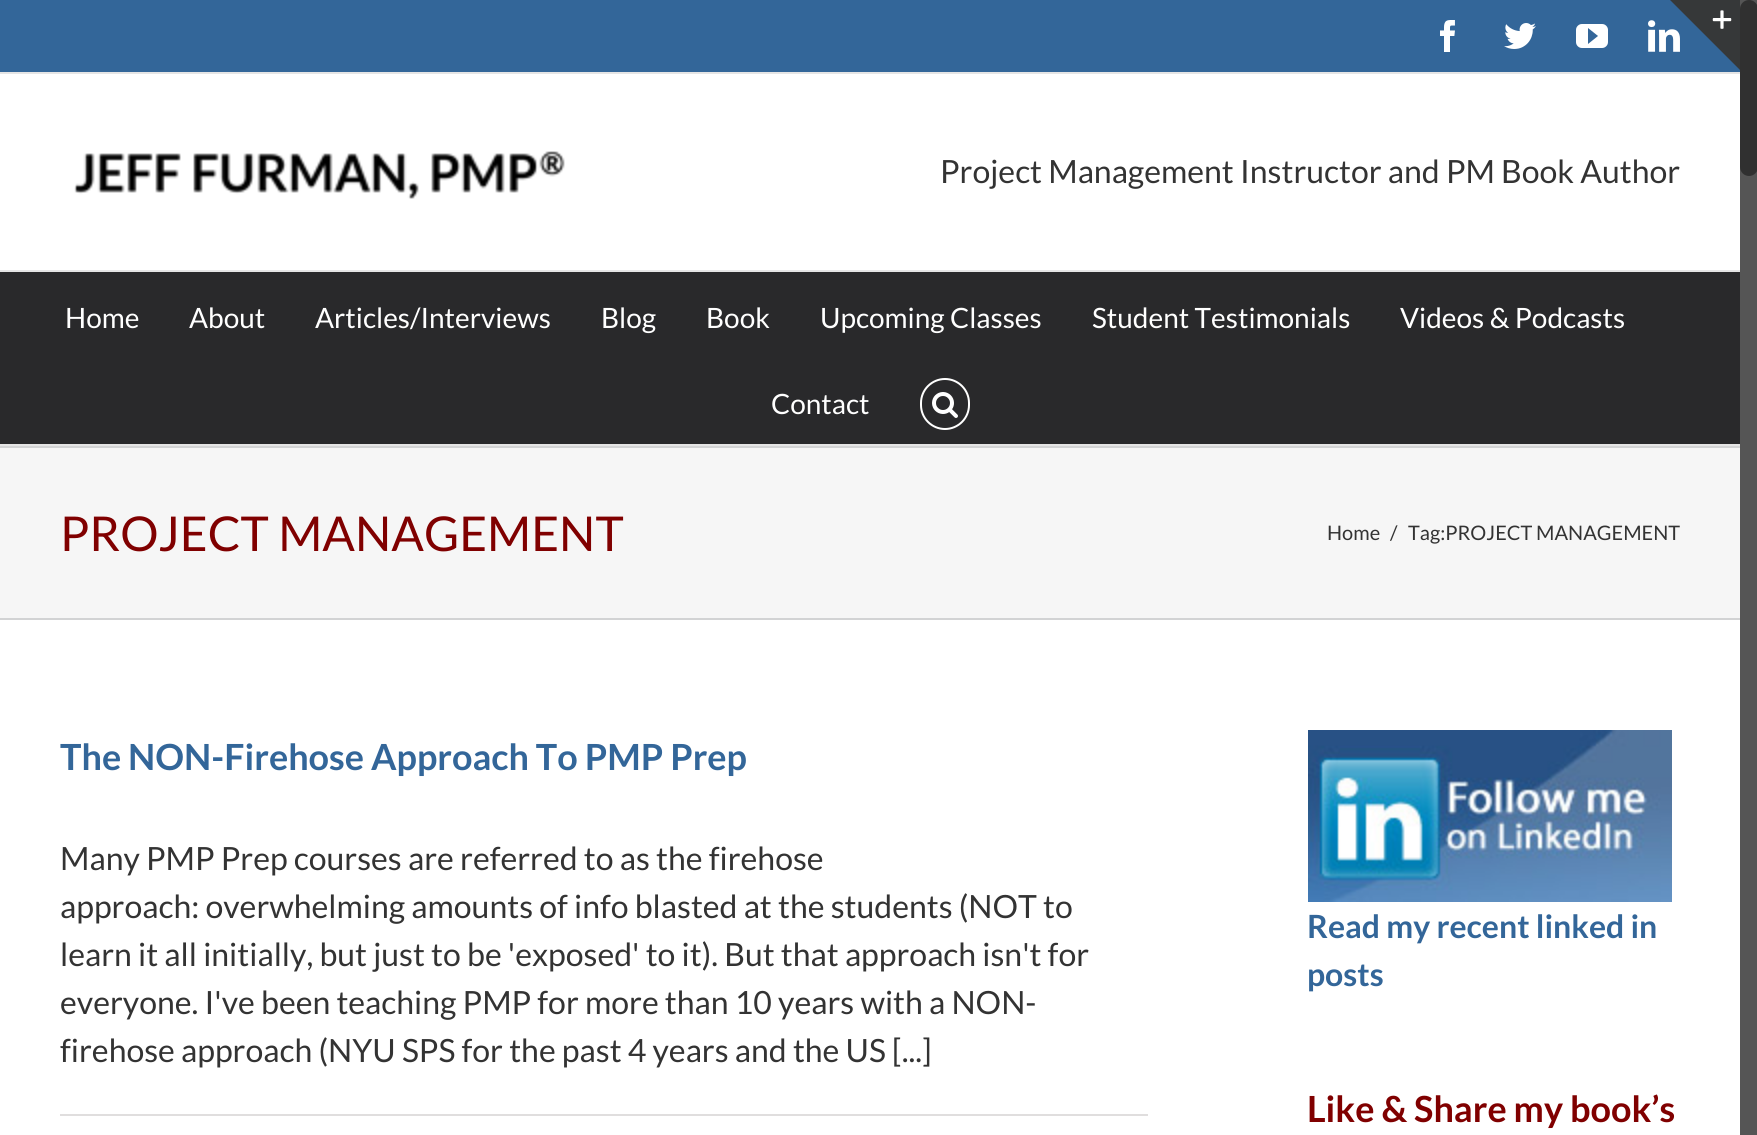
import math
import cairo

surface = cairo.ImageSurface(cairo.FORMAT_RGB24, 1757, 1135)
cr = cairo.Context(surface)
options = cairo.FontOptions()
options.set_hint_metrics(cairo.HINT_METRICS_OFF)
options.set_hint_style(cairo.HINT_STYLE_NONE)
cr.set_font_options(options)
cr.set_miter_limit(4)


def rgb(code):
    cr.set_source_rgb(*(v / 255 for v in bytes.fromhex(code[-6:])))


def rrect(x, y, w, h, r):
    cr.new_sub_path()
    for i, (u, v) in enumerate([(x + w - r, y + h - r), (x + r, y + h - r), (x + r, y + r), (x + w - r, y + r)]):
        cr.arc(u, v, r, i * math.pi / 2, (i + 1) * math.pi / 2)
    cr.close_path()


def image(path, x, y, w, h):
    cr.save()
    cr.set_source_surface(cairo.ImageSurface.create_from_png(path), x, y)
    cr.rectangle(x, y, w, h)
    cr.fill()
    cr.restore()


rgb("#f6f6f6")
cr.paint()
rgb("#336699")
cr.rectangle(0, 0, 1740, 72)
cr.fill()
image("img/5.png", 1648, 20, 32, 32)
rgb("#363839")
cr.new_path()
cr.move_to(1670, 0)
cr.line_to(1740, 0)
cr.line_to(1740, 70)
cr.close_path()
cr.fill()
image("img/1.png", 1712, 10, 20, 19)
rgb("#e5e5e5")
cr.rectangle(0, 72, 1740, 2)
cr.fill()
image("img/2.png", 1440, 20, 15, 32)
image("img/3.png", 1504, 23, 32, 26)
image("img/4.png", 1576, 24, 32, 24)
rgb("#ffffff")
cr.rectangle(0, 74, 1740, 196)
cr.fill()
rgb("#e5e5e5")
cr.rectangle(0, 270, 1740, 2)
cr.fill()
image("img/6.png", 74, 151, 491, 48)
rgb("#29292b")
cr.rectangle(0, 272, 1740, 172)
cr.fill()
rgb("#e5e5e5")
cr.rectangle(0, 444, 1740, 2)
cr.fill()
rrect(921, 379, 48, 50, 24)
rgb("#ffffff")
cr.stroke()
image("img/7.png", 932, 392, 26, 26)
for x, y, w, h, color in [
    (0, 446, 1740, 2, "#d2d3d4"),
    (0, 618, 1740, 2, "#d2d3d4"),
    (0, 620, 1740, 515, "#ffffff"),
    (60, 1114, 1088, 2, "#e0dede"),
]:
    rgb(color)
    cr.rectangle(x, y, w, h)
    cr.fill()
image("img/8.png", 1308, 730, 364, 172)
rgb("#555555")
cr.rectangle(1740, 0, 17, 1135)
cr.fill()
rgb("#303030")
rrect(1740, 0, 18, 176, 9)
cr.fill()
cr.select_font_face("Lato")
cr.set_font_size(32)
rgb("#333333")
cr.move_to(940, 183)
cr.show_text("Project Management Instructor and PM Book Author")
cr.set_font_size(28)
rgb("#ffffff")
for x, y, s in [
    (65, 328, "Home"),
    (189, 328, "About"),
    (315, 328, "Articles/Interviews"),
    (601, 328, "Blog"),
    (706, 328, "Book"),
    (820, 328, "Upcoming Classes"),
    (1092, 328, "Student Testimonials"),
    (1400, 328, "Videos & Podcasts"),
    (771, 414, "Contact"),
]:
    cr.move_to(x, y)
    cr.show_text(s)
cr.set_font_size(48)
rgb("#800000")
cr.move_to(60, 551)
cr.show_text("PROJECT MANAGEMENT")
cr.set_font_size(20)
rgb("#333333")
for x, y, s in [
    (1327, 540, "Home"),
    (1390, 540, "/"),
    (1408, 540, "Tag:PROJECT MANAGEMENT"),
]:
    cr.move_to(x, y)
    cr.show_text(s)
cr.select_font_face("Lato", cairo.FONT_SLANT_NORMAL, cairo.FONT_WEIGHT_BOLD)
cr.set_font_size(36)
rgb("#336699")
cr.move_to(60, 770)
cr.show_text("The NON-Firehose Approach To PMP Prep")
cr.select_font_face("Lato")
cr.set_font_size(32)
rgb("#333333")
for x, y, s in [
    (60, 870, "Many PMP Prep courses are referred to as the firehose"),
    (60, 918, "approach: overwhelming amounts of info blasted at the students (NOT to"),
    (60, 966, "learn it all initially, but just to be 'exposed' to it). But that approach isn't for"),
    (60, 1014, "everyone. I've been teaching PMP for more than 10 years with a NON-"),
    (60, 1062, "firehose approach (NYU SPS for the past 4 years and the US [...]"),
]:
    cr.move_to(x, y)
    cr.show_text(s)
cr.select_font_face("Lato", cairo.FONT_SLANT_NORMAL, cairo.FONT_WEIGHT_BOLD)
rgb("#336699")
cr.move_to(1307, 938)
cr.show_text("Read my recent linked in")
cr.move_to(1307, 986)
cr.show_text("posts")
cr.set_font_size(36)
rgb("#800000")
cr.move_to(1307, 1122)
cr.show_text("Like & Share my book’s")
surface.write_to_png("page.png")
